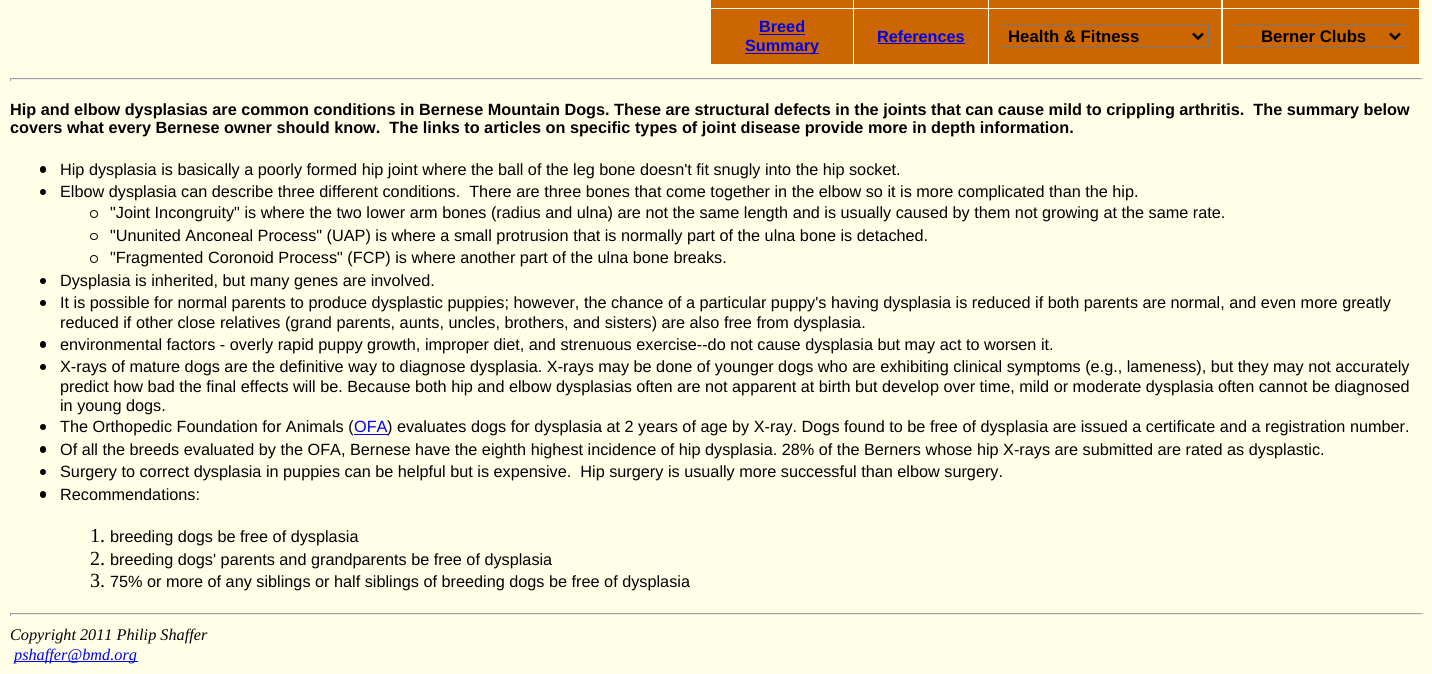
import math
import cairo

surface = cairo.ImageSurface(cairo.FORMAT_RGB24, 1432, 674)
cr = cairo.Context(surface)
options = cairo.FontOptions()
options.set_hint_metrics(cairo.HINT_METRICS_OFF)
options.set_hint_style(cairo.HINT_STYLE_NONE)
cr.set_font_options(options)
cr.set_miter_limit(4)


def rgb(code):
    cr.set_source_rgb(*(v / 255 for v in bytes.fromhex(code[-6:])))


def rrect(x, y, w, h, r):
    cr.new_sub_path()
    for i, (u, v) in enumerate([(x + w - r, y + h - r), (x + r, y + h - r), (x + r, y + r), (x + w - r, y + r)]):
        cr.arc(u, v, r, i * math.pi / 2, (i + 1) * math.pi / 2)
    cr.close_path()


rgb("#ffffe7")
cr.paint()
for x, y, w, h, color in [
    (711, 0, 142, 8, "#cc6600"),
    (854, 0, 134, 8, "#cc6600"),
    (989, 0, 232, 8, "#cc6600"),
    (1223, 0, 196, 8, "#cc6600"),
    (711, 9, 142, 55, "#cc6600"),
    (759, 34, 46, 1, "#0000ee"),
    (745, 53, 74, 1, "#0000ee"),
    (854, 9, 134, 55, "#cc6600"),
    (878, 43, 87, 1, "#0000ee"),
    (989, 9, 232, 55, "#cc6600"),
]:
    rgb(color)
    cr.rectangle(x, y, w, h)
    cr.fill()
rrect(1001.5, 24.5, 207, 23, 2)
rgb("#767676")
cr.set_line_width(1)
cr.stroke()
cr.new_path()
cr.move_to(1193, 33.5)
cr.line_to(1198, 38.5)
cr.line_to(1203, 33.5)
rgb("#000000")
cr.set_line_width(2.5)
cr.stroke()
rgb("#cc6600")
cr.rectangle(1223, 9, 196, 55)
cr.fill()
rrect(1235.5, 24.5, 170, 23, 2)
rgb("#767676")
cr.set_line_width(1)
cr.stroke()
cr.new_path()
cr.move_to(1390, 33.5)
cr.line_to(1395, 38.5)
cr.line_to(1400, 33.5)
rgb("#000000")
cr.set_line_width(2.5)
cr.stroke()
for x, y, w, h, color in [
    (10, 78, 1413, 1, "#9f9f9f"),
    (1421, 78, 1, 3, "#eeeeee"),
    (10, 79, 1413, 1, "#eeeeee"),
    (10, 78, 1, 3, "#9f9f9f"),
]:
    rgb(color)
    cr.rectangle(x, y, w, h)
    cr.fill()
rgb("#000000")
rrect(40, 166, 6, 7, 3)
cr.fill()
cr.arc(43, 192, 3, 0, 2 * math.pi)
cr.fill()
cr.arc(94, 214, 3.5, 0, 2 * math.pi)
cr.set_line_width(1)
cr.stroke()
rrect(90.5, 233.5, 7, 6, 3)
cr.stroke()
cr.arc(94, 259, 3.5, 0, 2 * math.pi)
cr.stroke()
cr.arc(43, 281, 3, 0, 2 * math.pi)
cr.fill()
cr.arc(43, 303, 3, 0, 2 * math.pi)
cr.fill()
rrect(40, 341, 6, 7, 3)
cr.fill()
cr.arc(43, 367, 3, 0, 2 * math.pi)
cr.fill()
cr.arc(43, 427, 3, 0, 2 * math.pi)
cr.fill()
rgb("#0000ee")
cr.rectangle(354, 434, 34, 1)
cr.fill()
rgb("#000000")
rrect(40, 446, 6, 7, 3)
cr.fill()
cr.arc(43, 472, 3, 0, 2 * math.pi)
cr.fill()
rrect(40, 491, 6, 7, 3)
cr.fill()
for x, y, w, h, color in [
    (10, 613, 1413, 1, "#9f9f9f"),
    (1421, 613, 1, 3, "#eeeeee"),
    (10, 614, 1413, 1, "#eeeeee"),
    (10, 613, 1, 3, "#9f9f9f"),
    (14, 661, 124, 1, "#0000ee"),
]:
    rgb(color)
    cr.rectangle(x, y, w, h)
    cr.fill()
cr.select_font_face("Liberation Sans", cairo.FONT_SLANT_NORMAL, cairo.FONT_WEIGHT_BOLD)
cr.set_font_size(16.25)
for x, y, s in [
    (759, 32, "Breed"),
    (745, 51, "Summary"),
    (877, 42, "References"),
]:
    cr.move_to(x, y)
    cr.show_text(s)
cr.set_font_size(16.75)
rgb("#000000")
cr.move_to(1008, 42)
cr.show_text("Health & Fitness")
cr.move_to(1261, 42)
cr.show_text("Berner Clubs")
cr.set_font_size(16.25)
cr.move_to(10, 115)
cr.show_text("Hip and elbow dysplasias are common conditions in Bernese Mountain Dogs. These are structural defects in the joints that can cause mild to crippling arthritis.  The summary below")
cr.move_to(10, 133)
cr.show_text("covers what every Bernese owner should know.  The links to articles on specific types of joint disease provide more in depth information.")
cr.select_font_face("Liberation Sans")
for x, y, s in [
    (60, 175, "Hip dysplasia is basically a poorly formed hip joint where the ball of the leg bone doesn't fit snugly into the hip socket."),
    (60, 197, "Elbow dysplasia can describe three different conditions.  There are three bones that come together in the elbow so it is more complicated than the hip."),
    (110, 218, "\"Joint Incongruity\" is where the two lower arm bones (radius and ulna) are not the same length and is usually caused by them not growing at the same rate."),
    (110, 241, "\"Ununited Anconeal Process\" (UAP) is where a small protrusion that is normally part of the ulna bone is detached."),
    (110, 263, "\"Fragmented Coronoid Process\" (FCP) is where another part of the ulna bone breaks."),
    (60, 286, "Dysplasia is inherited, but many genes are involved."),
    (60, 308, "It is possible for normal parents to produce dysplastic puppies; however, the chance of a particular puppy's having dysplasia is reduced if both parents are normal, and even more greatly"),
    (60, 328, "reduced if other close relatives (grand parents, aunts, uncles, brothers, and sisters) are also free from dysplasia."),
    (60, 350, "environmental factors - overly rapid puppy growth, improper diet, and strenuous exercise--do not cause dysplasia but may act to worsen it."),
    (60, 372, "X-rays of mature dogs are the definitive way to diagnose dysplasia. X-rays may be done of younger dogs who are exhibiting clinical symptoms (e.g., lameness), but they may not accurately"),
    (60, 392, "predict how bad the final effects will be. Because both hip and elbow dysplasias often are not apparent at birth but develop over time, mild or moderate dysplasia often cannot be diagnosed"),
    (60, 411, "in young dogs."),
    (60, 432, "The Orthopedic Foundation for Animals ("),
]:
    cr.move_to(x, y)
    cr.show_text(s)
rgb("#0000ee")
cr.move_to(354, 432)
cr.show_text("OFA")
rgb("#000000")
for x, y, s in [
    (387, 432, ") evaluates dogs for dysplasia at 2 years of age by X-ray. Dogs found to be free of dysplasia are issued a certificate and a registration number."),
    (60, 455, "Of all the breeds evaluated by the OFA, Bernese have the eighth highest incidence of hip dysplasia. 28% of the Berners whose hip X-rays are submitted are rated as dysplastic."),
    (60, 477, "Surgery to correct dysplasia in puppies can be helpful but is expensive.  Hip surgery is usually more successful than elbow surgery."),
    (60, 500, "Recommendations:"),
]:
    cr.move_to(x, y)
    cr.show_text(s)
cr.select_font_face("Liberation Serif")
cr.set_font_size(20)
cr.move_to(90, 542)
cr.show_text("1.")
cr.select_font_face("Liberation Sans")
cr.set_font_size(16.25)
cr.move_to(110, 542)
cr.show_text("breeding dogs be free of dysplasia")
cr.select_font_face("Liberation Serif")
cr.set_font_size(20)
cr.move_to(90, 565)
cr.show_text("2.")
cr.select_font_face("Liberation Sans")
cr.set_font_size(16.25)
cr.move_to(110, 565)
cr.show_text("breeding dogs' parents and grandparents be free of dysplasia")
cr.select_font_face("Liberation Serif")
cr.set_font_size(20)
cr.move_to(90, 587)
cr.show_text("3.")
cr.select_font_face("Liberation Sans")
cr.set_font_size(16.25)
cr.move_to(110, 587)
cr.show_text("75% or more of any siblings or half siblings of breeding dogs be free of dysplasia")
cr.select_font_face("Liberation Serif", cairo.FONT_SLANT_ITALIC)
cr.move_to(10, 640)
cr.show_text("Copyright 2011 Philip Shaffer")
rgb("#0000ee")
cr.move_to(14, 660)
cr.show_text("pshaffer@bmd.org")
surface.write_to_png("page.png")
